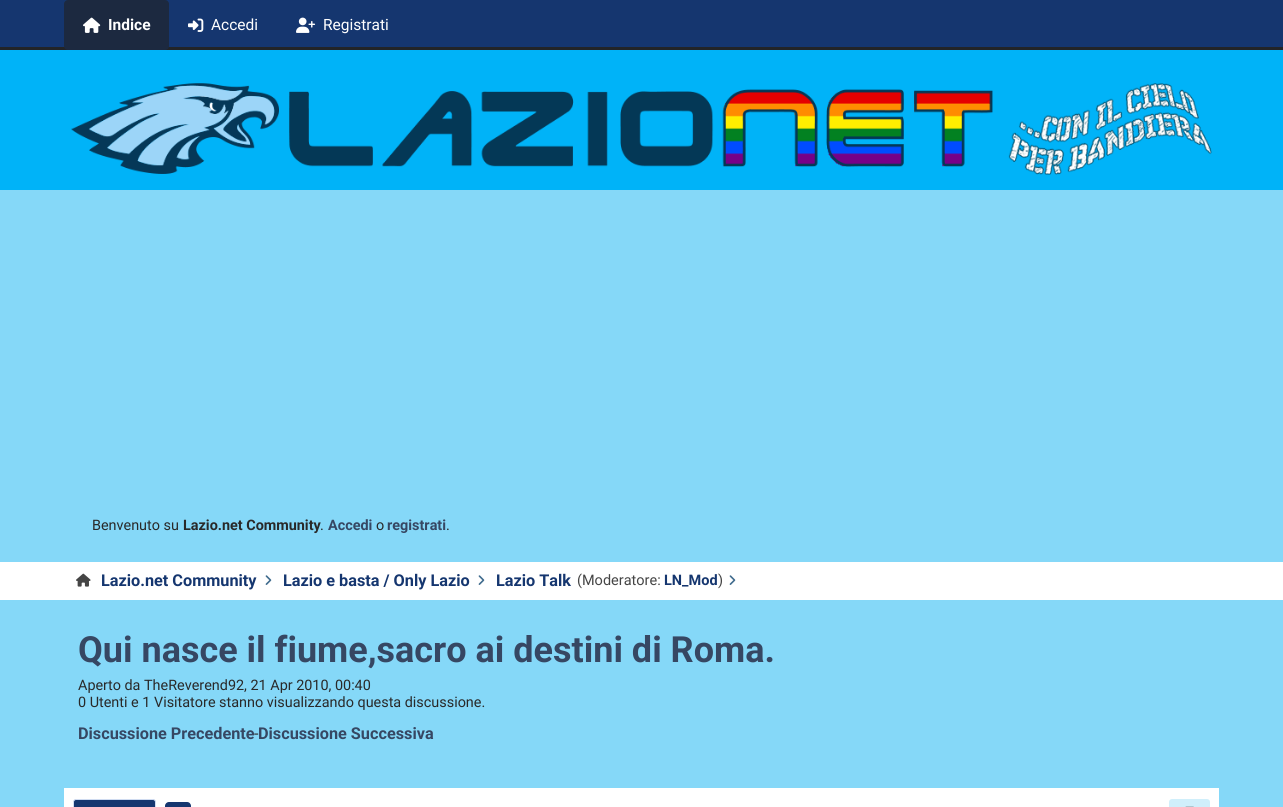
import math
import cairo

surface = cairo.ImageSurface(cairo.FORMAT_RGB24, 1283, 807)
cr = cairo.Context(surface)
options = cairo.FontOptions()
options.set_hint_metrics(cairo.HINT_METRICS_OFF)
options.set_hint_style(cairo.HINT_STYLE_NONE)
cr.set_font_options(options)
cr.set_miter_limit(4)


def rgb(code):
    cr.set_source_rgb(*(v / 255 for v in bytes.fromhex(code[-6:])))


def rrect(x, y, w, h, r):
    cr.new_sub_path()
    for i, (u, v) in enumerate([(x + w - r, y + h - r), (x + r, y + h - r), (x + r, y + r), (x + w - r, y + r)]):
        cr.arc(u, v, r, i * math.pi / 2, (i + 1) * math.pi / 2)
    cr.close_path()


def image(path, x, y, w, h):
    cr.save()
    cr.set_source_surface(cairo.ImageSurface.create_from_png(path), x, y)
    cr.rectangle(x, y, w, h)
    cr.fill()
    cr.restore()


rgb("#85d8f8")
cr.paint()
rgb("#15366f")
cr.rectangle(0, 0, 1283, 47)
cr.fill()
rgb("#222427")
cr.rectangle(0, 47, 1283, 3)
cr.fill()
rgb("#1c2940")
rrect(64, 0, 105, 50, 4)
cr.fill()
image("img/1.png", 83, 17, 18, 16)
image("img/2.png", 188, 18, 16, 14)
image("img/3.png", 296, 17, 20, 16)
rgb("#00b3f8")
cr.rectangle(0, 50, 1283, 140)
cr.fill()
image("img/4.png", 71, 83, 1141, 92)
rgb("#ffffff")
cr.rectangle(0, 562, 1283, 38)
cr.fill()
image("img/5.png", 76, 573, 15, 14)
image("img/6.png", 265, 575, 7, 10)
image("img/6.png", 478, 575, 7, 10)
image("img/6.png", 729, 575, 7, 10)
cr.rectangle(64, 788, 1155, 19)
cr.fill()
rgb("#15366f")
rrect(73.5, 799.5, 82, 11, 2.5)
cr.fill_preserve()
rgb("#d0dcf1")
cr.set_line_width(1)
cr.stroke()
rgb("#15366f")
rrect(165, 802, 26, 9, 4)
cr.fill()
rgb("#d0effb")
rrect(1169, 799, 41, 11, 3)
cr.fill()
image("img/7.png", 1185, 806, 9, 1)
cr.select_font_face("Roboto", cairo.FONT_SLANT_NORMAL, cairo.FONT_WEIGHT_BOLD)
cr.set_font_size(15.5)
rgb("#ffffff")
cr.move_to(108, 30)
cr.show_text("Indice")
cr.select_font_face("Roboto")
cr.move_to(211, 30)
cr.show_text("Accedi")
cr.move_to(323, 30)
cr.show_text("Registrati")
cr.set_font_size(14.4)
rgb("#292929")
cr.move_to(92, 530)
cr.show_text("Benvenuto su")
cr.select_font_face("Roboto", cairo.FONT_SLANT_NORMAL, cairo.FONT_WEIGHT_BOLD)
cr.move_to(183, 530)
cr.show_text("Lazio.net Community")
cr.select_font_face("Roboto")
cr.move_to(320, 530)
cr.show_text(".")
cr.select_font_face("Roboto", cairo.FONT_SLANT_NORMAL, cairo.FONT_WEIGHT_BOLD)
rgb("#364763")
cr.move_to(328, 530)
cr.show_text("Accedi")
cr.select_font_face("Roboto")
rgb("#292929")
cr.move_to(376, 530)
cr.show_text("o")
cr.select_font_face("Roboto", cairo.FONT_SLANT_NORMAL, cairo.FONT_WEIGHT_BOLD)
rgb("#364763")
cr.move_to(387, 530)
cr.show_text("registrati")
cr.select_font_face("Roboto")
rgb("#292929")
cr.move_to(446, 530)
cr.show_text(".")
cr.select_font_face("Roboto", cairo.FONT_SLANT_NORMAL, cairo.FONT_WEIGHT_BOLD)
cr.set_font_size(16.25)
rgb("#15366f")
for x, y, s in [
    (101, 586, "Lazio.net Community"),
    (283, 586, "Lazio e basta / Only Lazio"),
    (496, 586, "Lazio Talk"),
]:
    cr.move_to(x, y)
    cr.show_text(s)
cr.select_font_face("Roboto")
cr.set_font_size(14.5)
rgb("#454545")
cr.move_to(577, 585)
cr.show_text("(Moderatore:")
cr.select_font_face("Roboto", cairo.FONT_SLANT_NORMAL, cairo.FONT_WEIGHT_BOLD)
rgb("#15366f")
cr.move_to(664, 585)
cr.show_text("LN_Mod")
cr.select_font_face("Roboto")
rgb("#454545")
cr.move_to(718, 585)
cr.show_text(")")
cr.select_font_face("Roboto", cairo.FONT_SLANT_NORMAL, cairo.FONT_WEIGHT_BOLD)
cr.set_font_size(36)
rgb("#364763")
cr.move_to(78, 662)
cr.show_text("Qui nasce il fiume,sacro ai destini di Roma.")
cr.select_font_face("Roboto")
cr.set_font_size(14.4)
rgb("#292929")
cr.move_to(78, 690)
cr.show_text("Aperto da TheReverend92, 21 Apr 2010, 00:40")
cr.move_to(78, 707)
cr.show_text("0 Utenti e 1 Visitatore stanno visualizzando questa discussione.")
cr.select_font_face("Roboto", cairo.FONT_SLANT_NORMAL, cairo.FONT_WEIGHT_BOLD)
cr.set_font_size(16.25)
rgb("#364763")
cr.move_to(78, 739)
cr.show_text("Discussione Precedente")
cr.select_font_face("Roboto")
rgb("#333333")
cr.move_to(254, 739)
cr.show_text("-")
cr.select_font_face("Roboto", cairo.FONT_SLANT_NORMAL, cairo.FONT_WEIGHT_BOLD)
rgb("#364763")
cr.move_to(258, 739)
cr.show_text("Discussione Successiva")
surface.write_to_png("page.png")
